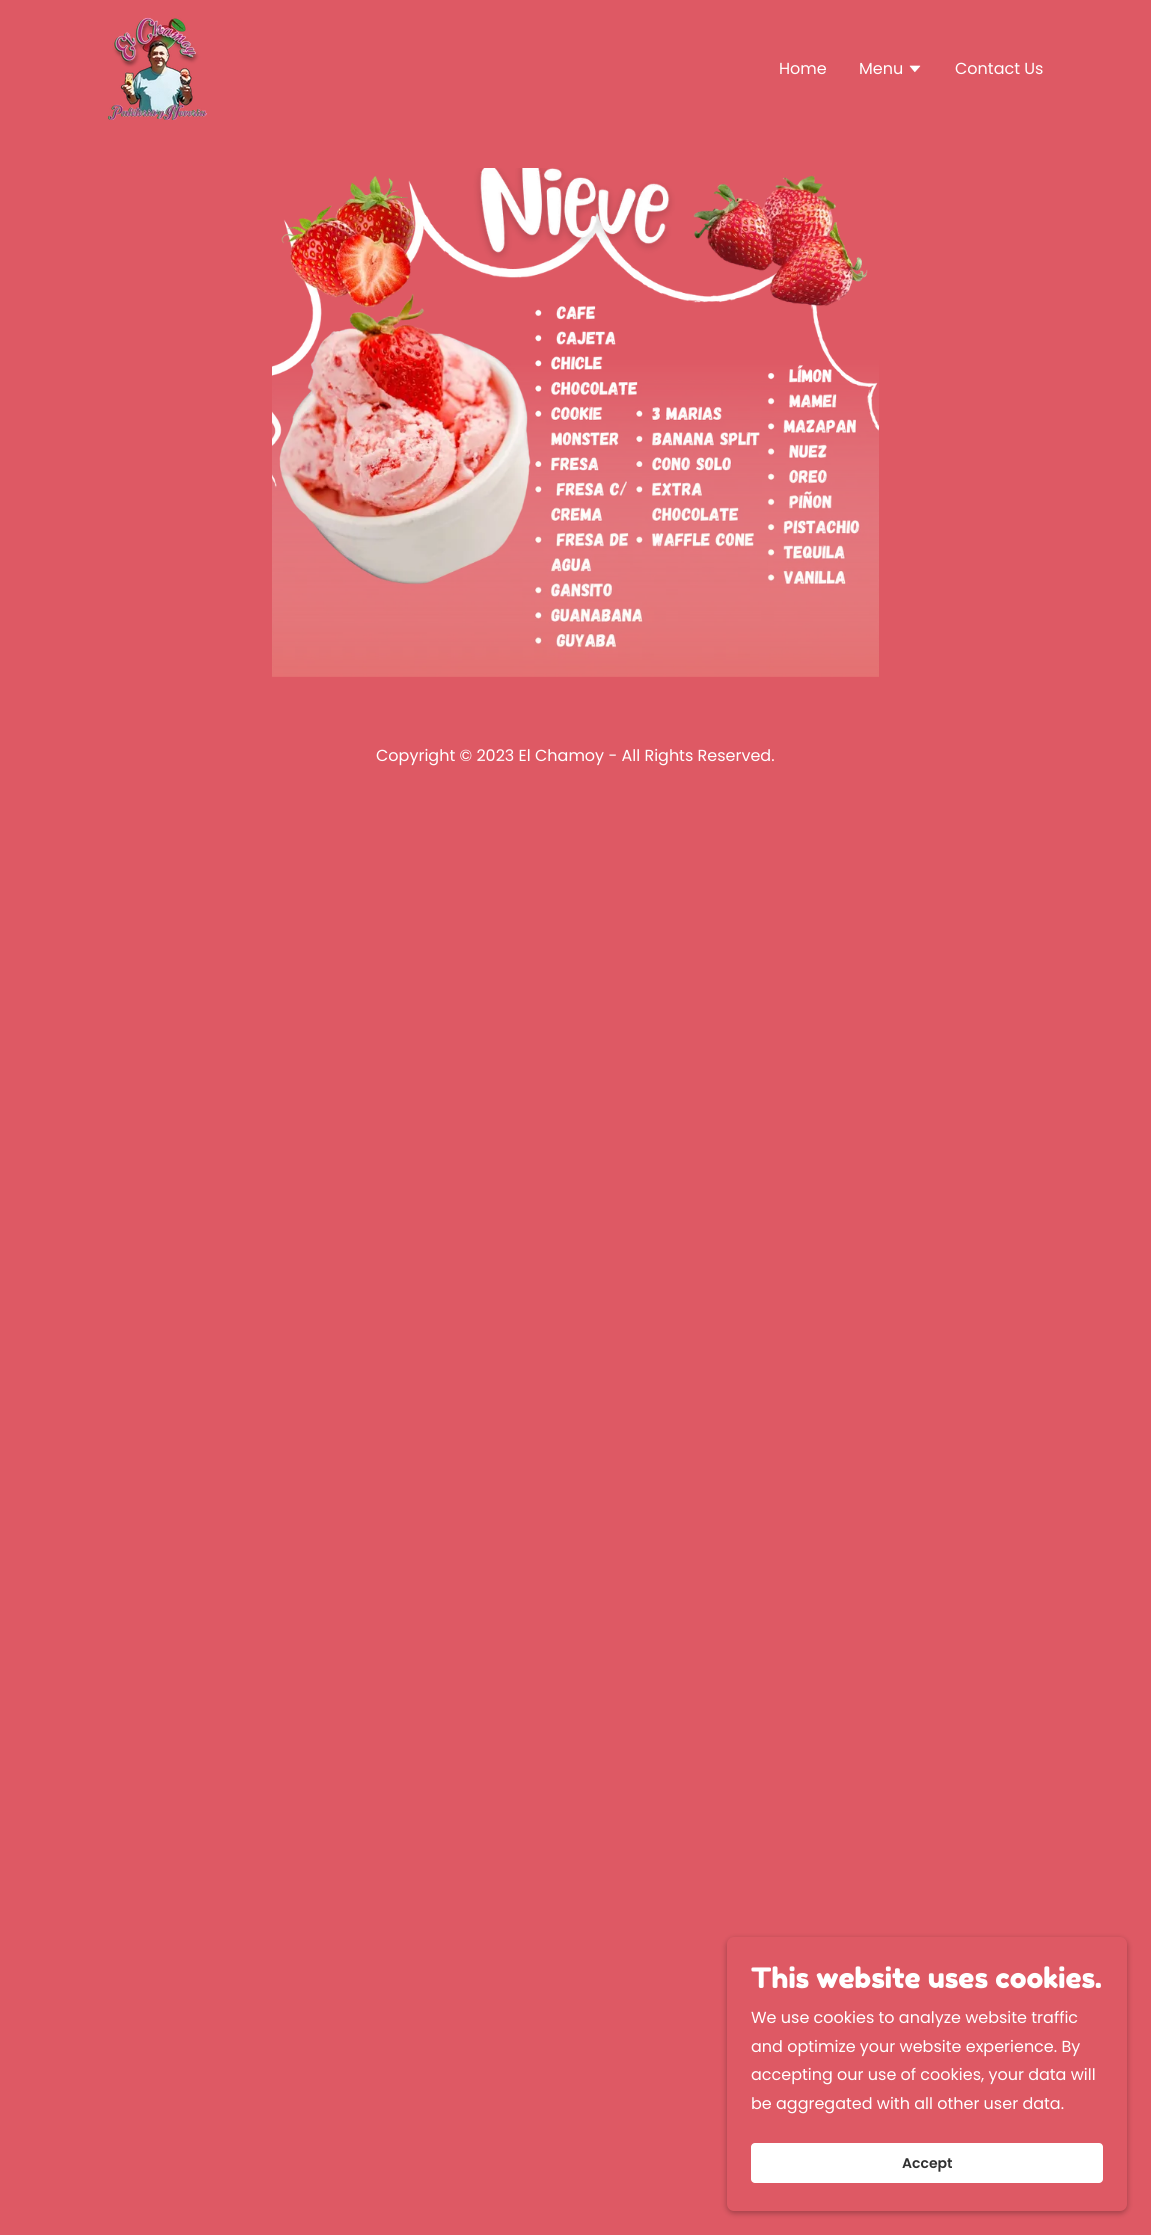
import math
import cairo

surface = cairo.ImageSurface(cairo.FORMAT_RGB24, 1151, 2235)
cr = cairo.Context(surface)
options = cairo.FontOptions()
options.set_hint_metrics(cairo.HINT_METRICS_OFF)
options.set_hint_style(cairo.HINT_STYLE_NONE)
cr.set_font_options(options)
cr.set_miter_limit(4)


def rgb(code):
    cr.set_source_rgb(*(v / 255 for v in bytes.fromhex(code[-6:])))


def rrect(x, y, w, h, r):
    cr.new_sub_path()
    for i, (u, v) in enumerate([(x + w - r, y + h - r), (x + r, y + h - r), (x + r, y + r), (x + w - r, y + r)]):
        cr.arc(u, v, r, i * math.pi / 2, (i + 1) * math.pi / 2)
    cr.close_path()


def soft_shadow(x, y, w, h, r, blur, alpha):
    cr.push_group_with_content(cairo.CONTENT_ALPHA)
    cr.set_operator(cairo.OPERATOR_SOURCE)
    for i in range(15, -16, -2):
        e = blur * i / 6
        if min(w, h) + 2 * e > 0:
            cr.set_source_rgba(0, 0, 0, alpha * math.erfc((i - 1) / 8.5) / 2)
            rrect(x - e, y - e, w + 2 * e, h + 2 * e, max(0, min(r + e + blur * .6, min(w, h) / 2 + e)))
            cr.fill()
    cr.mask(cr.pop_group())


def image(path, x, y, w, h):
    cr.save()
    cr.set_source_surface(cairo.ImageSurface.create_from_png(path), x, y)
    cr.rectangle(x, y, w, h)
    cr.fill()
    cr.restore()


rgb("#de5964")
cr.paint()
image("img/1.png", 108, 17, 99, 103)
image("img/2.png", 909, 65, 12, 8)
image("img/3.png", 272, 168, 607, 509)
rgb("#000000")
soft_shadow(727, 1939, 400, 274, 7, 3, 0.3)
rgb("#de5964")
rrect(727, 1937, 400, 274, 7)
cr.fill()
rgb("#ffffff")
rrect(751, 2143, 352, 40, 4)
cr.fill()
cr.select_font_face("Poppins")
cr.set_font_size(16)
for x, y, s in [
    (779, 74, "Home"),
    (859, 74, "Menu"),
    (955, 74, "Contact Us"),
    (376, 761, "Copyright © 2023 El Chamoy - All Rights Reserved."),
]:
    cr.move_to(x, y)
    cr.show_text(s)
cr.select_font_face("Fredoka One")
cr.set_font_size(28)
cr.move_to(751, 1988)
cr.show_text("This website uses cookies.")
cr.select_font_face("Poppins")
cr.set_font_size(16)
for x, y, s in [
    (751, 2023, "We use cookies to analyze website traffic"),
    (751, 2052, "and optimize your website experience. By"),
    (751, 2080, "accepting our use of cookies, your data will"),
    (751, 2109, "be aggregated with all other user data."),
]:
    cr.move_to(x, y)
    cr.show_text(s)
cr.select_font_face("Poppins SemiBold")
cr.set_font_size(14)
rgb("#303030")
cr.move_to(902, 2168)
cr.show_text("Accept")
surface.write_to_png("page.png")
